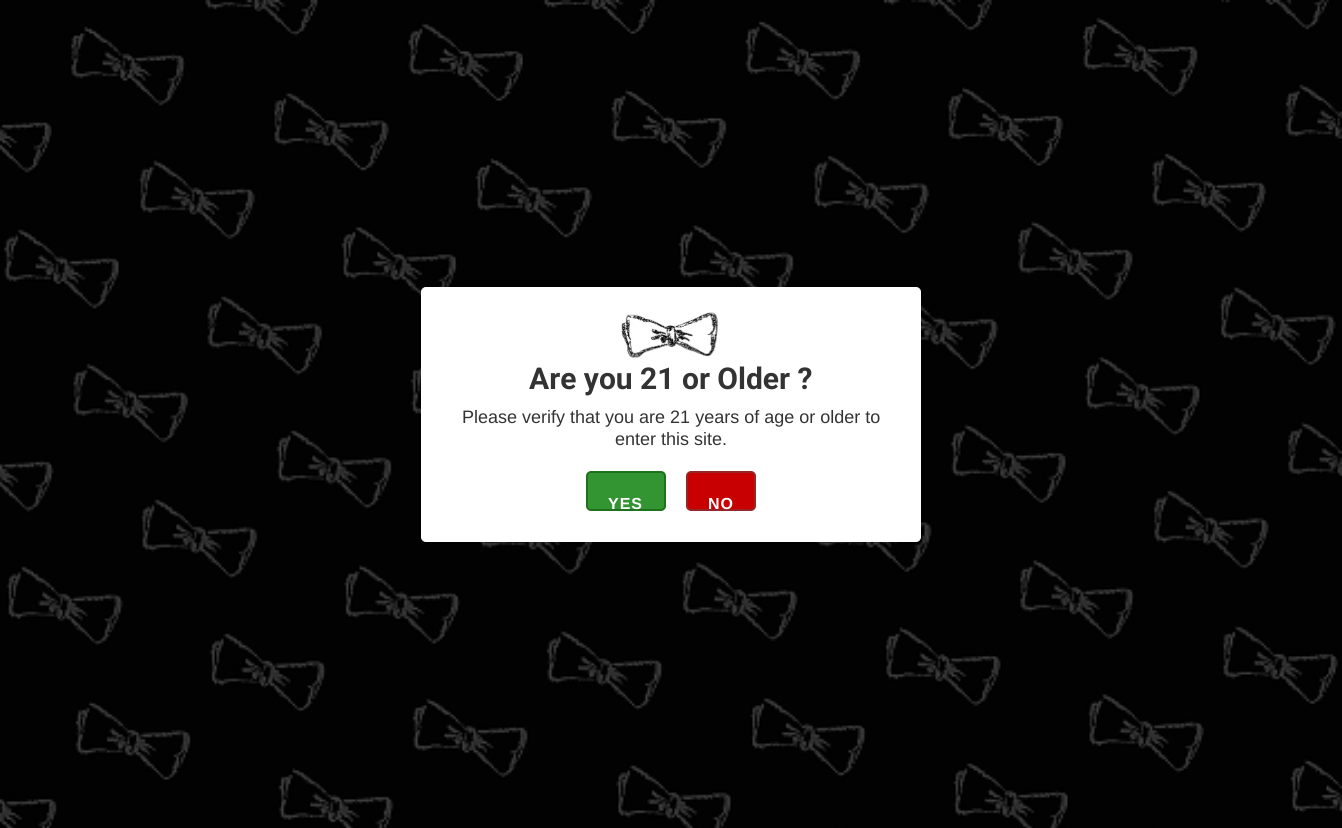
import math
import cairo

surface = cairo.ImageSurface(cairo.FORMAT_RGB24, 1342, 828)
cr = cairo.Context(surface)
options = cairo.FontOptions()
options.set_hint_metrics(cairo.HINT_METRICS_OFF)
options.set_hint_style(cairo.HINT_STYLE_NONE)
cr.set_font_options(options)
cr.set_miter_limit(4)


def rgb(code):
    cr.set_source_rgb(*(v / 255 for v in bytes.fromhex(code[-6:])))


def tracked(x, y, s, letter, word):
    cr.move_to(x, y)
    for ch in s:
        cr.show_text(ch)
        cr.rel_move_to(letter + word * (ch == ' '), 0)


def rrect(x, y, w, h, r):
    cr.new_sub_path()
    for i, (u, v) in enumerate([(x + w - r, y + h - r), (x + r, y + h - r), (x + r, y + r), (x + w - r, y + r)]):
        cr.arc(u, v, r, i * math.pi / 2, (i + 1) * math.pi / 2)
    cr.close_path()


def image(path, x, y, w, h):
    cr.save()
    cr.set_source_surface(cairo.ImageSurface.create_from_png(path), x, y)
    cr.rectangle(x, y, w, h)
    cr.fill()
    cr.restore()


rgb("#ffffff")
cr.paint()
image("img/1.png", 0, 0, 1342, 828)
rgb("#ffffff")
rrect(421.5, 287.5, 499, 254, 4.5)
cr.fill_preserve()
cr.set_line_width(1)
cr.stroke()
image("img/2.png", 621, 312, 98, 46)
rgb("#339532")
rrect(587, 472, 78, 38, 4)
cr.fill_preserve()
rgb("#1e711d")
cr.set_line_width(2)
cr.stroke()
rgb("#c80002")
rrect(687, 472, 68, 38, 4)
cr.fill_preserve()
rgb("#962627")
cr.stroke()
cr.select_font_face("Roboto", cairo.FONT_SLANT_NORMAL, cairo.FONT_WEIGHT_BOLD)
cr.set_font_size(30)
rgb("#333333")
cr.move_to(529, 389)
cr.show_text("Are you 21 or Older ?")
cr.select_font_face("Liberation Sans")
cr.set_font_size(18)
cr.move_to(462, 423)
cr.show_text("Please verify that you are 21 years of age or older to")
cr.move_to(615, 445)
cr.show_text("enter this site.")
cr.select_font_face("Liberation Sans", cairo.FONT_SLANT_NORMAL, cairo.FONT_WEIGHT_BOLD)
cr.set_font_size(16)
rgb("#ffffff")
tracked(608, 509, "YES", 1, 0)
tracked(708, 509, "NO", 1, 0)
surface.write_to_png("page.png")
